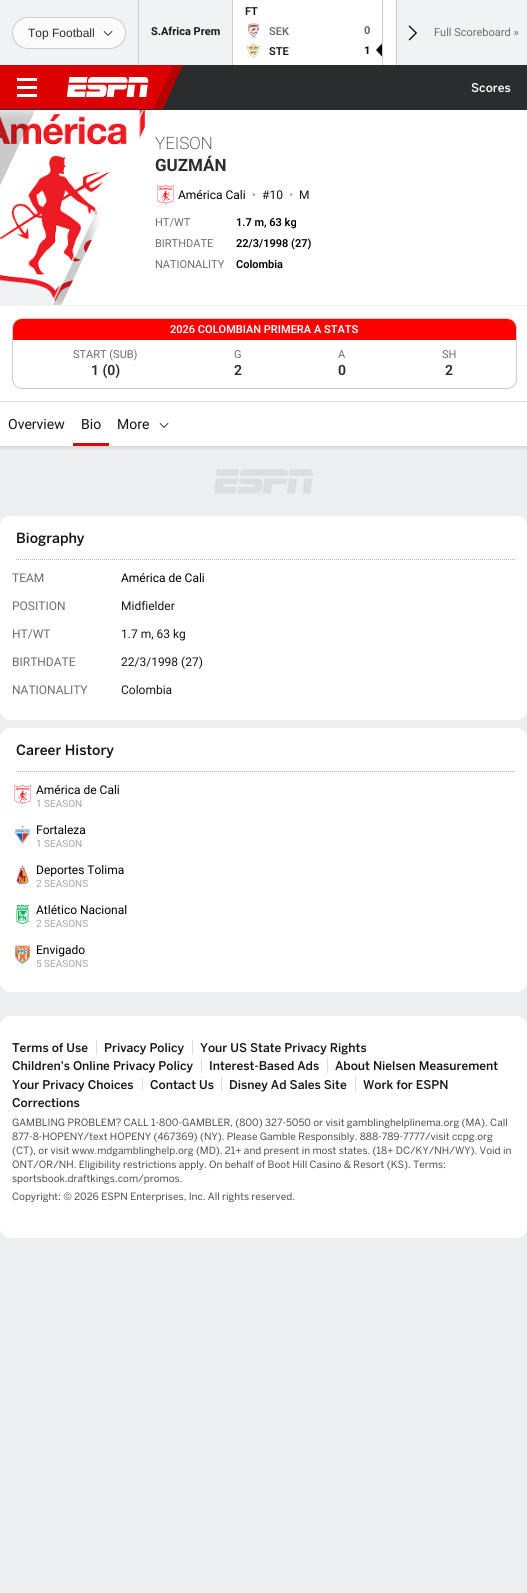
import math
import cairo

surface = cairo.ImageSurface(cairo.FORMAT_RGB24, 527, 1593)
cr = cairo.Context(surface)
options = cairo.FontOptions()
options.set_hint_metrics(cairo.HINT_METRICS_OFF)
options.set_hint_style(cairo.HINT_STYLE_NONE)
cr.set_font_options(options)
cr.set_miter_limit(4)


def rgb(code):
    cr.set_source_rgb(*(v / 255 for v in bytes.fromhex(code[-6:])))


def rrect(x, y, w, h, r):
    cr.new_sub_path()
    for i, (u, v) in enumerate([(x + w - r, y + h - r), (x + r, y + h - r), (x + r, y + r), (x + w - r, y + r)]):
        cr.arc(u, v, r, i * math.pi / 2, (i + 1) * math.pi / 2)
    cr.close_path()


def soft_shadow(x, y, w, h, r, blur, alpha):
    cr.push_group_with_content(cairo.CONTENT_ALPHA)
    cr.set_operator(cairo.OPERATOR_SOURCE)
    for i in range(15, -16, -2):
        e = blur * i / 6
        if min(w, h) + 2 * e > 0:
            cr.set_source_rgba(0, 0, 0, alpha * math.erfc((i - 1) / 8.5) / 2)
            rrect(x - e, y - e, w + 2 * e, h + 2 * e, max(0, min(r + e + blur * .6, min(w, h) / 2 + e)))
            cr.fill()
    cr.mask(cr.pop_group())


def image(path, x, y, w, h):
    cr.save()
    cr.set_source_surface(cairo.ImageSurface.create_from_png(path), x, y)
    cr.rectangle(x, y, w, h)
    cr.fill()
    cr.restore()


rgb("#edeef0")
cr.paint()
rgb("#f1f2f3")
cr.rectangle(0, 0, 527, 65)
cr.fill()
rgb("#cbccce")
cr.rectangle(138, 0, 1, 65)
cr.fill()
rgb("#fbfbfb")
rrect(12.5, 17.5, 113, 31, 15.5)
cr.fill_preserve()
rgb("#cbccce")
cr.set_line_width(1)
cr.stroke()
image("img/1.png", 103, 31, 10, 5)
for x, y, w, h, color in [
    (232, 0, 1, 65, "#cbccce"),
    (233, 0, 149, 65, "#ffffff"),
    (382, 0, 1, 65, "#cbccce"),
]:
    rgb(color)
    cr.rectangle(x, y, w, h)
    cr.fill()
image("img/2.png", 247, 23, 13, 15)
image("img/3.png", 246, 43, 15, 15)
rgb("#000000")
cr.new_path()
cr.move_to(376, 50)
cr.line_to(382, 56.5)
cr.line_to(382, 43.5)
cr.close_path()
cr.fill()
rgb("#ffffff")
cr.rectangle(383, 0, 13, 65)
cr.fill()
rgb("#cbccce")
cr.rectangle(396, 0, 1, 65)
cr.fill()
image("img/4.png", 408, 25, 9, 16)
for x, y, w, h, color in [
    (0, 110, 527, 291, "#ffffff"),
    (0, 305, 527, 1, "#f1f2f3"),
    (0, 110, 153, 195, "#f1f2f3"),
]:
    rgb(color)
    cr.rectangle(x, y, w, h)
    cr.fill()
image("img/6.png", 0, 110, 145, 192)
rrect(12.5, 318.5, 504, 70, 9.5)
rgb("#cbccce")
cr.stroke()
rgb("#ff0000")
cr.new_path()
cr.move_to(22, 319)
cr.line_to(507, 319)
cr.curve_to(512, 319, 516, 323, 516, 328)
cr.line_to(516, 340)
cr.line_to(13, 340)
cr.line_to(13, 328)
cr.curve_to(13, 323, 17, 319, 22, 319)
cr.close_path()
cr.fill()
cr.save()
cr.rectangle(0, 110, 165, 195)
cr.clip()
cr.set_fill_rule(cairo.FILL_RULE_EVEN_ODD)
cr.new_path()
cr.move_to(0, 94)
cr.line_to(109, 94)
cr.line_to(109, 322)
cr.line_to(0, 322)
cr.close_path()
cr.move_to(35.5, 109.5)
cr.line_to(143.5, 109.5)
cr.line_to(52.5, 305.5)
cr.line_to(-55.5, 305.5)
cr.close_path()
cr.clip()
rgb("#000000")
soft_shadow(-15, 110, 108, 196, 0, 5, 0.21)
cr.restore()
rgb("#2b2c2d")
cr.rectangle(0, 65, 527, 45)
cr.fill()
rgb("#b40000")
cr.new_path()
cr.move_to(53, 65)
cr.line_to(183, 65)
cr.line_to(163, 109)
cr.line_to(33, 109)
cr.close_path()
cr.fill()
rgb("#dd0000")
cr.new_path()
cr.move_to(-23, 65)
cr.line_to(173, 65)
cr.line_to(153, 109)
cr.line_to(-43, 109)
cr.close_path()
cr.fill()
image("img/5.png", 67, 77, 82, 20)
for x, y, w, h, color in [
    (17, 86, 20, 3, "#ffffff"),
    (17, 78, 20, 3, "#ffffff"),
    (17, 94, 20, 3, "#ffffff"),
    (0, 401, 527, 1, "#dcdddf"),
]:
    rgb(color)
    cr.rectangle(x, y, w, h)
    cr.fill()
cr.save()
cr.rectangle(0, 110, 165, 195)
cr.clip()
cr.set_source_rgba(1, 1, 1, 0.7)
cr.new_path()
cr.move_to(142, 110)
cr.line_to(144, 110)
cr.line_to(52, 306)
cr.line_to(50, 306)
cr.close_path()
cr.fill()
rgb("#ffffff")
cr.new_path()
cr.move_to(153, 110)
cr.line_to(258, 110)
cr.line_to(166, 306)
cr.line_to(61, 306)
cr.close_path()
cr.fill()
cr.set_source_rgba(1, 1, 1, 0.9)
cr.new_path()
cr.move_to(153, 110)
cr.line_to(258, 110)
cr.line_to(166, 306)
cr.line_to(61, 306)
cr.close_path()
cr.fill()
cr.restore()
image("img/7.png", 157, 184, 17, 20)
rgb("#ffffff")
cr.rectangle(0, 402, 527, 44)
cr.fill()
rgb("#dd0000")
cr.rectangle(73, 443, 36, 3)
cr.fill()
image("img/8.png", 159, 423, 10, 5)
gradient = cairo.LinearGradient(264, 446, 264, 451)
gradient.add_color_stop_rgba(0, 0.835, 0.839, 0.847, 1)
gradient.add_color_stop_rgba(1, 0.929, 0.933, 0.941, 1)
cr.set_source(gradient)
cr.rectangle(0, 446, 527, 4)
cr.fill()
image("img/9.png", 214, 469, 99, 25)
rgb("#ffffff")
rrect(0, 516, 527, 204, 10)
cr.fill()
cr.new_path()
cr.move_to(16, 559.5)
cr.line_to(515, 559.5)
rgb("#b5b7b7")
cr.set_dash([1, 1])
cr.stroke()
rgb("#ffffff")
rrect(0, 728, 527, 264, 10)
cr.fill()
cr.new_path()
cr.move_to(16, 771.5)
cr.line_to(515, 771.5)
rgb("#b5b7b7")
cr.stroke()
image("img/7.png", 14, 784, 17, 20)
image("img/10.png", 15, 825, 15, 19)
image("img/11.png", 16, 865, 13, 19)
image("img/12.png", 16, 904, 13, 20)
image("img/13.png", 15, 945, 15, 19)
rgb("#ffffff")
rrect(0, 1016, 527, 222, 10)
cr.fill()
for x, y, w, h, color in [
    (96, 1040, 1, 14, "#dcdddf"),
    (192, 1040, 1, 14, "#dcdddf"),
    (201, 1058, 1, 15, "#dcdddf"),
    (327, 1058, 1, 15, "#dcdddf"),
    (142, 1077, 1, 14, "#dcdddf"),
    (221, 1077, 1, 14, "#dcdddf"),
    (355, 1077, 1, 14, "#dcdddf"),
]:
    rgb(color)
    cr.rectangle(x, y, w, h)
    cr.fill()
cr.select_font_face("Liberation Sans")
cr.set_font_size(12)
rgb("#2b2c2d")
cr.move_to(28, 37)
cr.show_text("Top Football")
cr.select_font_face("Roboto", cairo.FONT_SLANT_NORMAL, cairo.FONT_WEIGHT_BOLD)
cr.set_font_size(11)
rgb("#151617")
cr.move_to(151, 35)
cr.show_text("S.Africa Prem")
cr.select_font_face("Roboto SemiBold")
cr.move_to(245, 15)
cr.show_text("FT")
rgb("#6c6d6f")
cr.move_to(269, 35)
cr.show_text("SEK")
cr.select_font_face("Roboto ExtraBold")
cr.move_to(364, 34)
cr.show_text("0")
cr.select_font_face("Roboto SemiBold")
rgb("#151617")
cr.move_to(269, 55)
cr.show_text("STE")
cr.select_font_face("Roboto ExtraBold")
cr.move_to(364, 54)
cr.show_text("1")
cr.select_font_face("Roboto")
rgb("#6c6d6f")
cr.move_to(434, 36)
cr.show_text("Full Scoreboard »")
cr.select_font_face("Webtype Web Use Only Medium")
cr.set_font_size(12)
rgb("#ffffff")
cr.move_to(471, 92)
cr.show_text("Scores")
cr.select_font_face("Roboto ExtraLight")
cr.set_font_size(17)
rgb("#2b2c2d")
cr.move_to(155, 149)
cr.show_text("YEISON")
cr.select_font_face("Roboto", cairo.FONT_SLANT_NORMAL, cairo.FONT_WEIGHT_BOLD)
cr.move_to(155, 171)
cr.show_text("GUZMÁN")
cr.select_font_face("Roboto")
cr.set_font_size(12)
rgb("#000000")
cr.move_to(178, 199)
cr.show_text("América Cali")
rgb("#a5a6a7")
cr.move_to(252, 199)
cr.show_text("•")
rgb("#151617")
cr.move_to(262, 199)
cr.show_text("#10")
rgb("#a5a6a7")
cr.move_to(289, 199)
cr.show_text("•")
rgb("#151617")
cr.move_to(299, 199)
cr.show_text("M")
cr.set_font_size(11)
rgb("#6c6d6f")
cr.move_to(155, 226)
cr.show_text("HT/WT")
cr.select_font_face("Roboto SemiBold")
rgb("#000000")
cr.move_to(236, 226)
cr.show_text("1.7 m, 63 kg")
cr.select_font_face("Roboto")
rgb("#6c6d6f")
cr.move_to(155, 247)
cr.show_text("BIRTHDATE")
cr.select_font_face("Roboto SemiBold")
rgb("#000000")
cr.move_to(236, 247)
cr.show_text("22/3/1998 (27)")
cr.select_font_face("Roboto")
rgb("#6c6d6f")
cr.move_to(155, 268)
cr.show_text("NATIONALITY")
cr.select_font_face("Roboto SemiBold")
rgb("#000000")
cr.move_to(236, 268)
cr.show_text("Colombia")
rgb("#ffffff")
cr.move_to(170, 333)
cr.show_text("2026 COLOMBIAN PRIMERA A STATS")
cr.select_font_face("Roboto")
rgb("#6c6d6f")
cr.move_to(73, 358)
cr.show_text("START (SUB)")
cr.select_font_face("Roboto SemiBold")
cr.set_font_size(14)
rgb("#2b2c2d")
cr.move_to(91, 375)
cr.show_text("1 (0)")
cr.select_font_face("Roboto")
cr.set_font_size(11)
rgb("#6c6d6f")
cr.move_to(234, 358)
cr.show_text("G")
cr.select_font_face("Roboto SemiBold")
cr.set_font_size(14)
rgb("#2b2c2d")
cr.move_to(234, 375)
cr.show_text("2")
cr.select_font_face("Roboto")
cr.set_font_size(11)
rgb("#6c6d6f")
cr.move_to(338, 358)
cr.show_text("A")
cr.select_font_face("Roboto SemiBold")
cr.set_font_size(14)
rgb("#2b2c2d")
cr.move_to(338, 375)
cr.show_text("0")
cr.select_font_face("Roboto")
cr.set_font_size(11)
rgb("#6c6d6f")
cr.move_to(442, 358)
cr.show_text("SH")
cr.select_font_face("Roboto SemiBold")
cr.set_font_size(14)
rgb("#2b2c2d")
cr.move_to(445, 375)
cr.show_text("2")
cr.select_font_face("Roboto")
rgb("#151617")
for x, y, s in [
    (8, 429, "Overview"),
    (81, 429, "Bio"),
    (117, 429, "More"),
]:
    cr.move_to(x, y)
    cr.show_text(s)
cr.select_font_face("Webtype Web Use Only Medium")
cr.move_to(16, 543)
cr.show_text("Biography")
cr.select_font_face("Roboto")
cr.set_font_size(12)
rgb("#6c6d6f")
cr.move_to(12, 582)
cr.show_text("TEAM")
rgb("#000000")
cr.move_to(121, 582)
cr.show_text("América de Cali")
rgb("#6c6d6f")
cr.move_to(12, 610)
cr.show_text("POSITION")
rgb("#151617")
cr.move_to(121, 610)
cr.show_text("Midfielder")
rgb("#6c6d6f")
cr.move_to(12, 638)
cr.show_text("HT/WT")
rgb("#151617")
cr.move_to(121, 638)
cr.show_text("1.7 m, 63 kg")
rgb("#6c6d6f")
cr.move_to(12, 666)
cr.show_text("BIRTHDATE")
rgb("#151617")
cr.move_to(121, 666)
cr.show_text("22/3/1998 (27)")
rgb("#6c6d6f")
cr.move_to(12, 694)
cr.show_text("NATIONALITY")
rgb("#151617")
cr.move_to(121, 694)
cr.show_text("Colombia")
cr.select_font_face("Webtype Web Use Only Medium")
cr.set_font_size(14)
cr.move_to(16, 755)
cr.show_text("Career History")
cr.select_font_face("Roboto")
cr.set_font_size(12)
rgb("#000000")
cr.move_to(36, 794)
cr.show_text("América de Cali")
cr.set_font_size(10)
rgb("#a5a6a7")
cr.move_to(36, 807)
cr.show_text("1 SEASON")
cr.set_font_size(12)
rgb("#000000")
cr.move_to(36, 834)
cr.show_text("Fortaleza")
cr.set_font_size(10)
rgb("#a5a6a7")
cr.move_to(36, 847)
cr.show_text("1 SEASON")
cr.set_font_size(12)
rgb("#000000")
cr.move_to(36, 874)
cr.show_text("Deportes Tolima")
cr.set_font_size(10)
rgb("#a5a6a7")
cr.move_to(36, 887)
cr.show_text("2 SEASONS")
cr.set_font_size(12)
rgb("#000000")
cr.move_to(36, 914)
cr.show_text("Atlético Nacional")
cr.set_font_size(10)
rgb("#a5a6a7")
cr.move_to(36, 927)
cr.show_text("2 SEASONS")
cr.set_font_size(12)
rgb("#000000")
cr.move_to(36, 954)
cr.show_text("Envigado")
cr.set_font_size(10)
rgb("#a5a6a7")
cr.move_to(36, 967)
cr.show_text("5 SEASONS")
cr.select_font_face("Webtype Web Use Only Medium")
cr.set_font_size(12)
rgb("#151617")
for x, y, s in [
    (12, 1052, "Terms of Use"),
    (104, 1052, "Privacy Policy"),
    (200, 1052, "Your US State Privacy Rights"),
    (12, 1070, "Children's Online Privacy Policy"),
    (209, 1070, "Interest-Based Ads"),
    (335, 1070, "About Nielsen Measurement"),
    (12, 1089, "Your Privacy Choices"),
    (150, 1089, "Contact Us"),
    (229, 1089, "Disney Ad Sales Site"),
    (363, 1089, "Work for ESPN"),
    (12, 1107, "Corrections"),
]:
    cr.move_to(x, y)
    cr.show_text(s)
cr.select_font_face("Webtype Web Use Only")
cr.set_font_size(10)
rgb("#48494a")
for x, y, s in [
    (12, 1126, "GAMBLING PROBLEM? CALL 1-800-GAMBLER, (800) 327-5050 or visit gamblinghelplinema.org (MA). Call"),
    (12, 1140, "877-8-HOPENY/text HOPENY (467369) (NY). Please Gamble Responsibly. 888-789-7777/visit ccpg.org"),
    (12, 1154, "(CT), or visit www.mdgamblinghelp.org (MD). 21+ and present in most states. (18+ DC/KY/NH/WY). Void in"),
    (12, 1168, "ONT/OR/NH. Eligibility restrictions apply. On behalf of Boot Hill Casino & Resort (KS). Terms:"),
    (12, 1182, "sportsbook.draftkings.com/promos."),
    (12, 1200, "Copyright: © 2026 ESPN Enterprises, Inc. All rights reserved."),
]:
    cr.move_to(x, y)
    cr.show_text(s)
surface.write_to_png("page.png")
